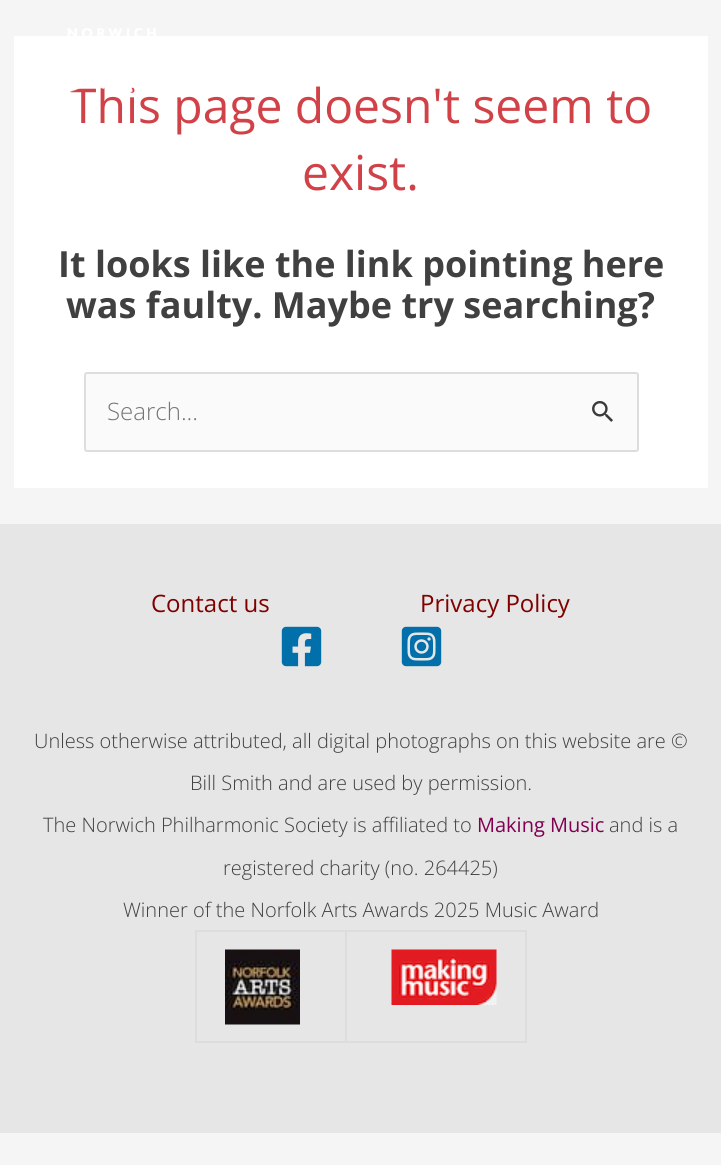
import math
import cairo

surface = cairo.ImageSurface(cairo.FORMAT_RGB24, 721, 1165)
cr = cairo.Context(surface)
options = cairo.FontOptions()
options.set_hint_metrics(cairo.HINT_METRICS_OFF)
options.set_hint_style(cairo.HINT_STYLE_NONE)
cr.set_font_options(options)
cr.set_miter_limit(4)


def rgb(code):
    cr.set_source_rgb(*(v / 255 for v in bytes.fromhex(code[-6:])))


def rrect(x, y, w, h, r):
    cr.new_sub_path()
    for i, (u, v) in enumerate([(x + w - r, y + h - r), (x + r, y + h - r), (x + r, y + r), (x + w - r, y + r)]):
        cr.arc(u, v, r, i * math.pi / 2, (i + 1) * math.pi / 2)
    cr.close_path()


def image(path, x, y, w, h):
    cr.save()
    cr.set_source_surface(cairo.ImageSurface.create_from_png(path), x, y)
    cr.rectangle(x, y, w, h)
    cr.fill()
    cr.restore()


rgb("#f5f5f5")
cr.paint()
rgb("#ffffff")
cr.rectangle(14, 36, 694, 452)
cr.fill()
rgb("#fafafa")
rrect(85, 373, 553, 78, 2)
cr.fill_preserve()
rgb("#dddddd")
cr.stroke()
image("img/2.png", 592, 401, 21, 21)
rgb("#e6e6e6")
cr.rectangle(0, 524, 721, 609)
cr.fill()
image("img/3.png", 281, 626, 41, 41)
image("img/4.png", 401, 626, 41, 41)
for x, y, w, h, color in [
    (195, 930, 332, 2, "#dddddd"),
    (195, 930, 2, 113, "#dddddd"),
    (525, 930, 2, 113, "#dddddd"),
    (345, 1041, 182, 2, "#dddddd"),
    (345, 930, 2, 113, "#dddddd"),
    (195, 1041, 152, 2, "#dddddd"),
]:
    rgb(color)
    cr.rectangle(x, y, w, h)
    cr.fill()
image("img/5.png", 225, 949, 75, 76)
image("img/6.png", 391, 949, 106, 56)
cr.select_font_face("Open Sans")
cr.set_font_size(48)
rgb("#d14248")
cr.move_to(70, 123)
cr.show_text("This page doesn't seem to")
image("img/1.png", 67, 28, 89, 65)
cr.move_to(302, 190)
cr.show_text("exist.")
cr.select_font_face("Open Sans", cairo.FONT_SLANT_NORMAL, cairo.FONT_WEIGHT_BOLD)
cr.set_font_size(36)
rgb("#404040")
cr.move_to(58, 277)
cr.show_text("It looks like the link pointing here")
cr.move_to(66, 318)
cr.show_text("was faulty. Maybe try searching?")
cr.select_font_face("Open Sans Light")
cr.set_font_size(24)
rgb("#757575")
cr.move_to(107, 420)
cr.show_text("Search...")
cr.select_font_face("Open Sans")
rgb("#800000")
cr.move_to(151, 612)
cr.show_text("Contact us")
cr.move_to(420, 612)
cr.show_text("Privacy Policy")
cr.select_font_face("Open Sans Light")
cr.set_font_size(20)
rgb("#404040")
for x, y, s in [
    (34, 748, "Unless otherwise attributed, all digital photographs on this website are ©"),
    (190, 790, "Bill Smith and are used by permission."),
    (43, 832, "The Norwich Philharmonic Society is affiliated to"),
]:
    cr.move_to(x, y)
    cr.show_text(s)
cr.select_font_face("Open Sans")
rgb("#810052")
cr.move_to(477, 832)
cr.show_text("Making Music")
cr.select_font_face("Open Sans Light")
rgb("#404040")
for x, y, s in [
    (609, 832, "and is a"),
    (223, 875, "registered charity (no. 264425)"),
    (123, 917, "Winner of the Norfolk Arts Awards 2025 Music Award"),
]:
    cr.move_to(x, y)
    cr.show_text(s)
surface.write_to_png("page.png")
